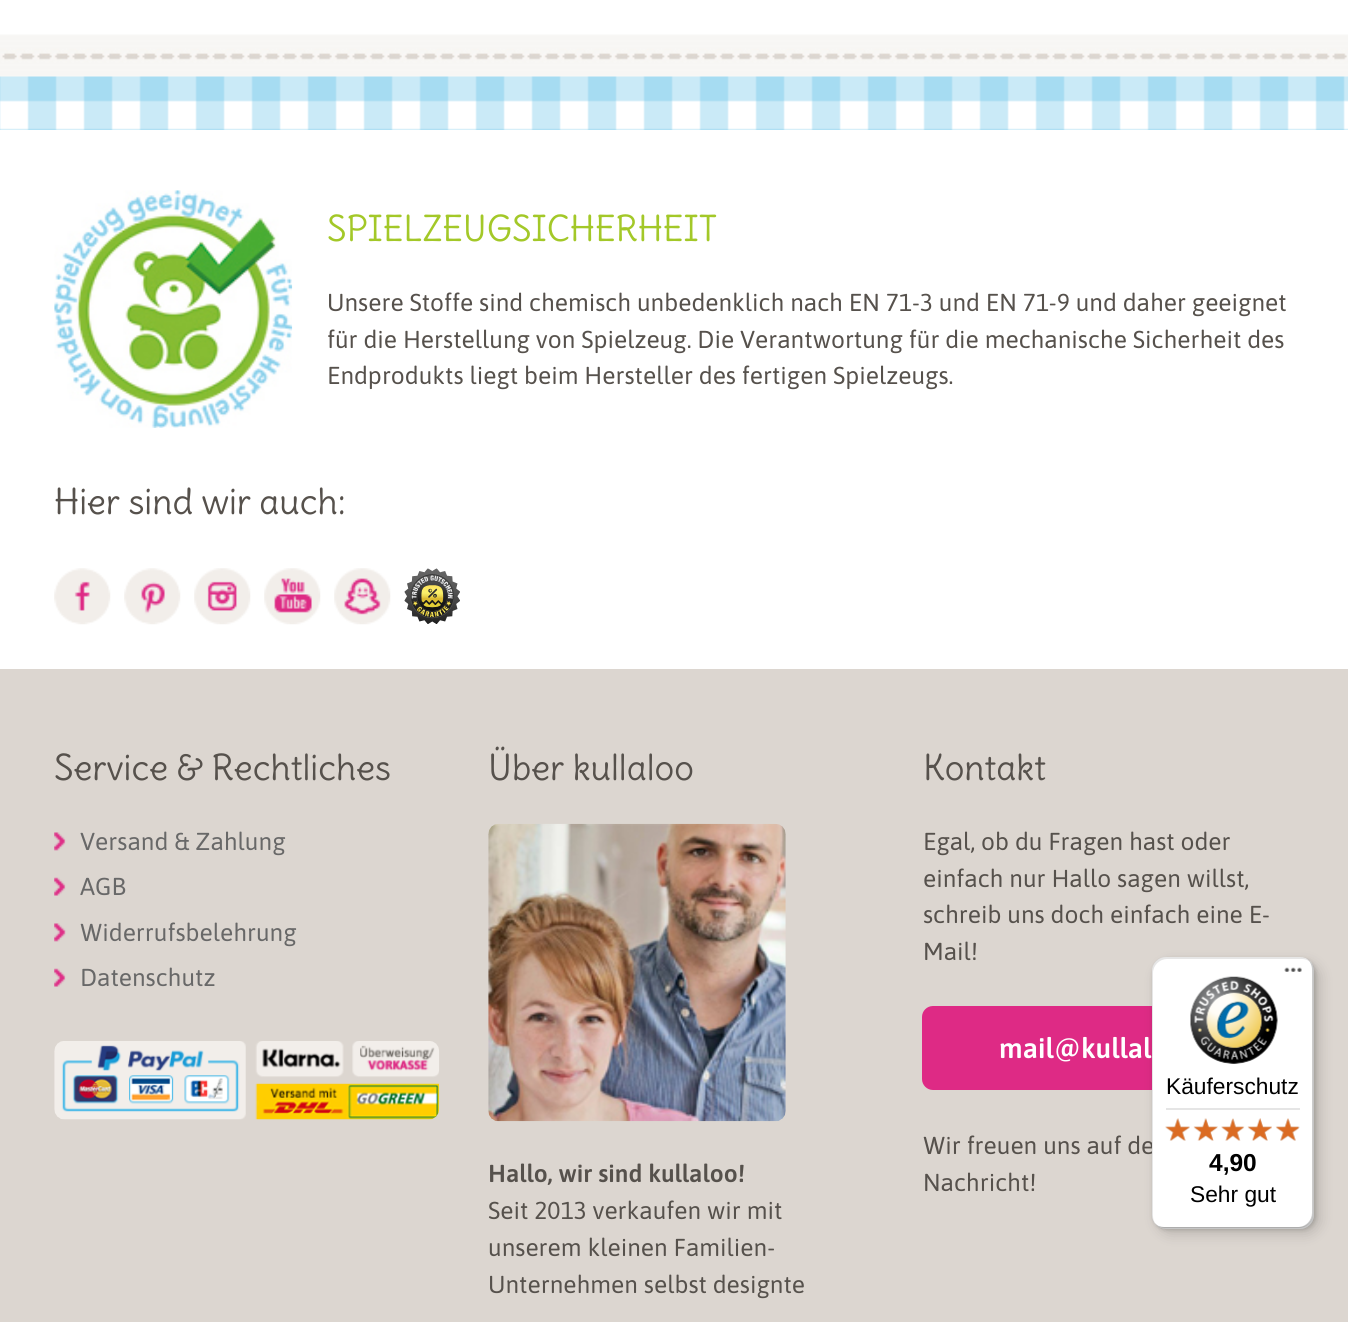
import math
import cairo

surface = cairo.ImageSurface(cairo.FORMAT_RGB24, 1348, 1322)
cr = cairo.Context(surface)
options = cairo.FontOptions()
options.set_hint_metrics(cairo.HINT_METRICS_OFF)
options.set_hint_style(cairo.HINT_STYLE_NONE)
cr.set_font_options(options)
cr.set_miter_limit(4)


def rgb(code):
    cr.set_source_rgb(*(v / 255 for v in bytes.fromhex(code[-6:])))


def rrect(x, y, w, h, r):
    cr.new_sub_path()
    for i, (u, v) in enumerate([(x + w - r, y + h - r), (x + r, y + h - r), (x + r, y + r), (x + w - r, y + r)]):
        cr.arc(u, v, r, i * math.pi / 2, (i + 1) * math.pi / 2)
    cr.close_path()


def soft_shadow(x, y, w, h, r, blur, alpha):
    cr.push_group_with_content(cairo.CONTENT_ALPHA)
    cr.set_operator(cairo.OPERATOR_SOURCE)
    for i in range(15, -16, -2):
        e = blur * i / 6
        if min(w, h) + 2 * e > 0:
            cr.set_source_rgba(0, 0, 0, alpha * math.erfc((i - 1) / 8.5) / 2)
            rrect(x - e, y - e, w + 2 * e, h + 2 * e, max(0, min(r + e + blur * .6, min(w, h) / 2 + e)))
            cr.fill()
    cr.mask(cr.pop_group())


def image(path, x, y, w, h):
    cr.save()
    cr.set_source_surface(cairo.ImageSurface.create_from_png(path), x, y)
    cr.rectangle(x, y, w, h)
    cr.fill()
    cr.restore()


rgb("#ffffff")
cr.paint()
image("img/1.png", 0, 76, 1348, 54)
image("img/2.png", 0, 34, 1348, 43)
image("img/3.png", 54, 190, 239, 238)
image("img/4.png", 54, 568, 57, 57)
image("img/5.png", 124, 568, 57, 57)
image("img/6.png", 194, 568, 57, 57)
image("img/7.png", 264, 568, 57, 57)
image("img/8.png", 334, 568, 57, 57)
image("img/9.png", 404, 568, 56, 56)
rgb("#dcd6d0")
cr.rectangle(0, 669, 1348, 653)
cr.fill()
image("img/10.png", 54, 832, 12, 19)
image("img/11.png", 54, 877, 12, 19)
image("img/12.png", 54, 923, 12, 19)
image("img/13.png", 54, 968, 12, 19)
image("img/14.png", 54, 1041, 386, 79)
image("img/15.png", 488, 823, 298, 299)
rgb("#de2a85")
rrect(922, 1006, 373, 84, 11)
cr.fill()
rgb("#000000")
soft_shadow(1157, 963, 163, 271, 14, 7, 0.15)
soft_shadow(1153, 959, 163, 271, 14, 2, 0.15)
cr.select_font_face("Delius")
cr.set_font_size(35)
rgb("#a3c828")
cr.move_to(327, 241)
cr.show_text("SPIELZEUGSICHERHEIT")
cr.select_font_face("Asap")
cr.set_font_size(24.5)
rgb("#56514c")
for x, y, s in [
    (327, 311, "Unsere Stoffe sind chemisch unbedenklich nach EN 71-3 und EN 71-9 und daher geeignet"),
    (327, 348, "für die Herstellung von Spielzeug. Die Verantwortung für die mechanische Sicherheit des"),
    (327, 384, "Endprodukts liegt beim Hersteller des fertigen Spielzeugs."),
]:
    cr.move_to(x, y)
    cr.show_text(s)
cr.select_font_face("Delius")
cr.set_font_size(35)
cr.move_to(54, 514)
cr.show_text("Hier sind wir auch:")
cr.move_to(54, 780)
cr.show_text("Service & Rechtliches")
cr.select_font_face("Asap")
cr.set_font_size(24.5)
rgb("#686868")
for x, y, s in [
    (80, 850, "Versand & Zahlung"),
    (80, 895, "AGB"),
    (80, 941, "Widerrufsbelehrung"),
    (80, 986, "Datenschutz"),
]:
    cr.move_to(x, y)
    cr.show_text(s)
cr.select_font_face("Delius")
cr.set_font_size(35)
rgb("#56514c")
cr.move_to(488, 780)
cr.show_text("Über kullaloo")
cr.select_font_face("Asap SemiBold")
cr.set_font_size(24.5)
cr.move_to(488, 1182)
cr.show_text("Hallo, wir sind kullaloo!")
cr.select_font_face("Asap")
for x, y, s in [
    (488, 1219, "Seit 2013 verkaufen wir mit"),
    (488, 1256, "unserem kleinen Familien-"),
    (488, 1293, "Unternehmen selbst designte"),
]:
    cr.move_to(x, y)
    cr.show_text(s)
cr.select_font_face("Delius")
cr.set_font_size(35)
cr.move_to(923, 780)
cr.show_text("Kontakt")
cr.select_font_face("Asap")
cr.set_font_size(24.5)
for x, y, s in [
    (923, 850, "Egal, ob du Fragen hast oder"),
    (923, 887, "einfach nur Hallo sagen willst,"),
    (923, 923, "schreib uns doch einfach eine E-"),
    (923, 960, "Mail!"),
]:
    cr.move_to(x, y)
    cr.show_text(s)
cr.select_font_face("Asap SemiBold")
cr.set_font_size(28)
rgb("#ffffff")
cr.move_to(999, 1058)
cr.show_text("mail@kullal")
cr.select_font_face("Asap")
cr.set_font_size(24.5)
rgb("#56514c")
cr.move_to(923, 1154)
cr.show_text("Wir freuen uns auf de")
cr.move_to(923, 1191)
cr.show_text("Nachricht!")
rgb("#ffffff")
rrect(1152, 957, 162, 272, 14)
cr.fill()
cr.set_source_rgba(0, 0, 0, 0.1)
cr.new_path()
cr.move_to(1167, 959)
cr.line_to(1302, 959)
cr.curve_to(1305, 959, 1308, 960, 1310, 962)
cr.curve_to(1308, 959, 1304, 957, 1300, 957)
cr.line_to(1166, 957)
cr.curve_to(1158, 957, 1152, 963, 1152, 971)
cr.line_to(1152, 1215)
cr.curve_to(1152, 1220, 1154, 1224, 1158, 1226)
cr.curve_to(1155, 1224, 1153, 1220, 1153, 1216)
cr.line_to(1153, 973)
cr.curve_to(1153, 965, 1160, 959, 1167, 959)
cr.close_path()
cr.fill()
cr.set_source_rgba(0, 0, 0, 0.2)
cr.new_path()
cr.move_to(1155, 1223)
cr.curve_to(1157, 1227, 1161, 1229, 1166, 1229)
cr.line_to(1300, 1229)
cr.curve_to(1308, 1229, 1314, 1223, 1314, 1215)
cr.line_to(1314, 971)
cr.curve_to(1314, 965, 1311, 961, 1306, 958)
cr.curve_to(1310, 961, 1312, 965, 1312, 970)
cr.line_to(1312, 1213)
cr.curve_to(1312, 1220, 1306, 1227, 1298, 1227)
cr.line_to(1164, 1227)
cr.curve_to(1160, 1227, 1157, 1226, 1155, 1223)
cr.close_path()
cr.fill()
cr.set_source_rgba(0.196, 0.196, 0.196, 0.2)
cr.new_path()
cr.move_to(1155, 1223)
cr.curve_to(1157, 1227, 1161, 1229, 1166, 1229)
cr.line_to(1300, 1229)
cr.curve_to(1308, 1229, 1314, 1223, 1314, 1215)
cr.line_to(1314, 971)
cr.curve_to(1314, 967, 1313, 964, 1310, 962)
cr.curve_to(1312, 964, 1313, 967, 1313, 970)
cr.line_to(1313, 1213)
cr.curve_to(1313, 1221, 1307, 1227, 1299, 1227)
cr.line_to(1164, 1227)
cr.curve_to(1161, 1227, 1157, 1226, 1155, 1223)
cr.close_path()
cr.fill()
cr.set_source_rgba(1, 1, 1, 0.3)
cr.new_path()
cr.move_to(1155, 1223)
cr.curve_to(1157, 1227, 1161, 1229, 1166, 1229)
cr.line_to(1300, 1229)
cr.curve_to(1308, 1229, 1314, 1223, 1314, 1215)
cr.line_to(1314, 971)
cr.curve_to(1314, 966, 1312, 962, 1309, 960)
cr.curve_to(1311, 963, 1313, 966, 1313, 970)
cr.line_to(1313, 1214)
cr.curve_to(1313, 1221, 1307, 1228, 1299, 1228)
cr.line_to(1165, 1228)
cr.curve_to(1161, 1228, 1157, 1226, 1155, 1223)
cr.close_path()
cr.fill()
image("img/16.png", 1284, 967, 18, 5)
image("img/17.png", 1190, 976, 88, 88)
cr.select_font_face("Liberation Sans")
cr.set_font_size(22.75)
rgb("#000000")
cr.move_to(1166, 1094)
cr.show_text("Käuferschutz")
rgb("#e5e5e5")
cr.rectangle(1166, 1108, 134, 2)
cr.fill()
image("img/18.png", 1165, 1118, 25, 23)
image("img/19.png", 1194, 1118, 24, 23)
image("img/20.png", 1221, 1119, 23, 22)
image("img/21.png", 1248, 1118, 24, 23)
image("img/22.png", 1276, 1118, 24, 23)
image("img/23.png", 1165, 1118, 25, 23)
image("img/24.png", 1193, 1118, 25, 23)
image("img/25.png", 1221, 1118, 24, 23)
image("img/26.png", 1247, 1118, 25, 23)
image("img/27.png", 1275, 1118, 24, 23)
cr.select_font_face("Liberation Sans", cairo.FONT_SLANT_NORMAL, cairo.FONT_WEIGHT_BOLD)
cr.set_font_size(24.5)
rgb("#000000")
cr.move_to(1209, 1171)
cr.show_text("4,90")
cr.select_font_face("Liberation Sans")
cr.set_font_size(22.75)
cr.move_to(1190, 1202)
cr.show_text("Sehr gut")
surface.write_to_png("page.png")
